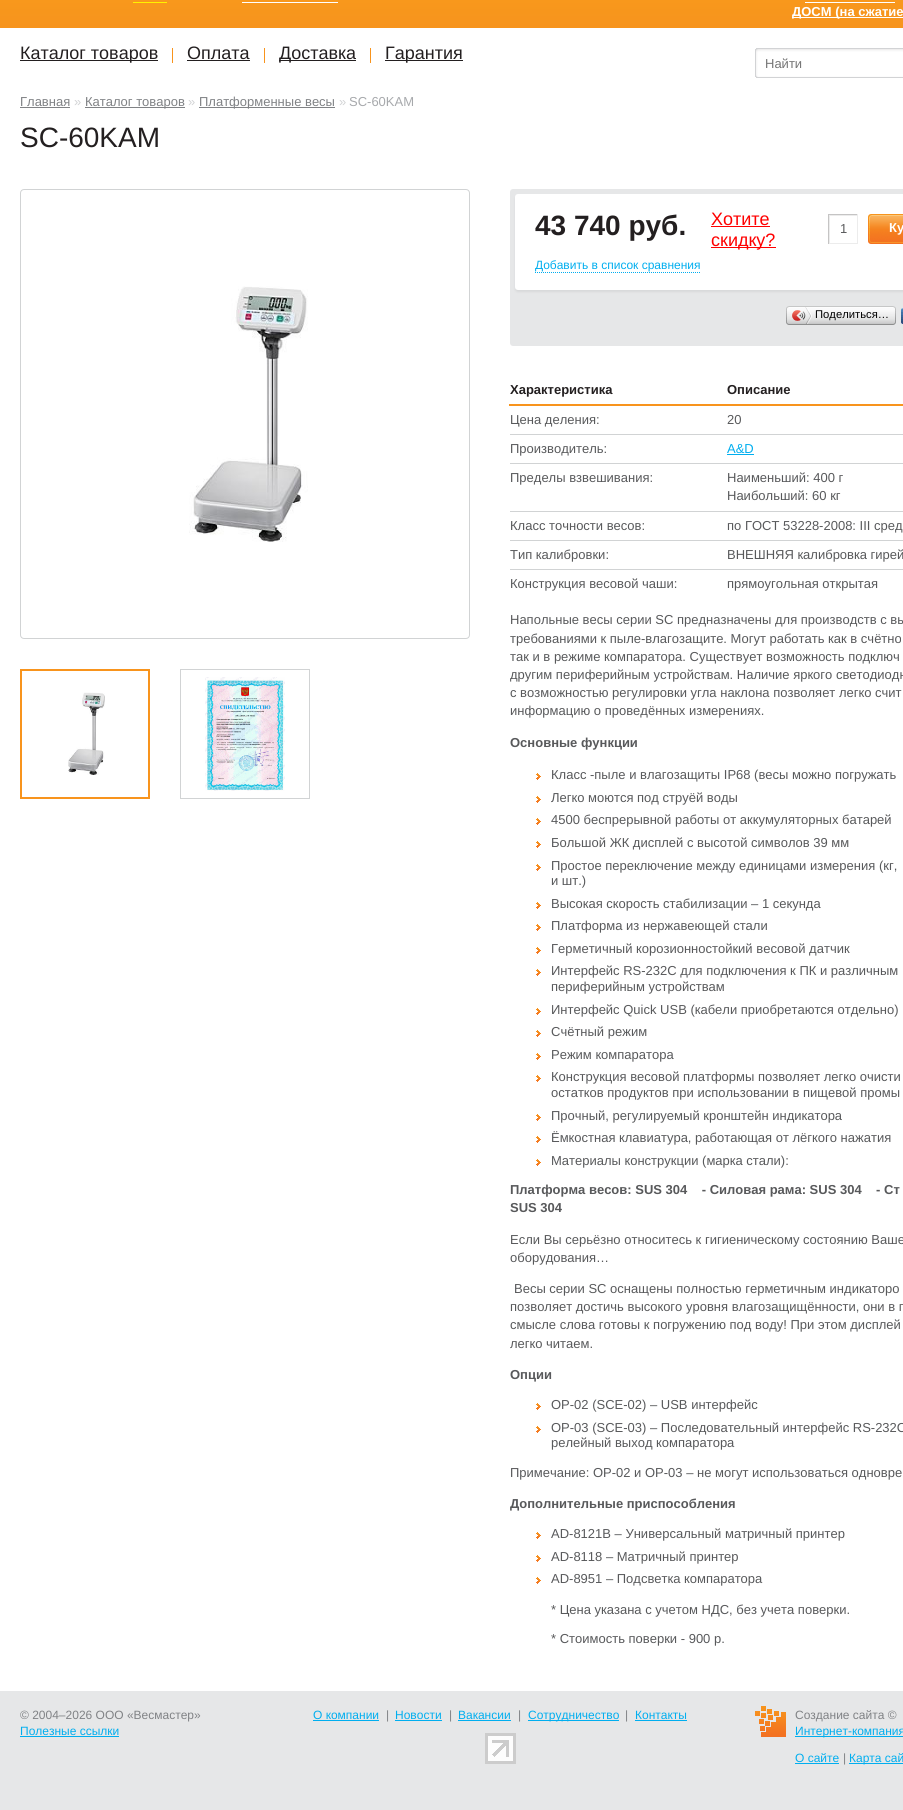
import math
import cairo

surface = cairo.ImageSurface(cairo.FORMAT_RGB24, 903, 1810)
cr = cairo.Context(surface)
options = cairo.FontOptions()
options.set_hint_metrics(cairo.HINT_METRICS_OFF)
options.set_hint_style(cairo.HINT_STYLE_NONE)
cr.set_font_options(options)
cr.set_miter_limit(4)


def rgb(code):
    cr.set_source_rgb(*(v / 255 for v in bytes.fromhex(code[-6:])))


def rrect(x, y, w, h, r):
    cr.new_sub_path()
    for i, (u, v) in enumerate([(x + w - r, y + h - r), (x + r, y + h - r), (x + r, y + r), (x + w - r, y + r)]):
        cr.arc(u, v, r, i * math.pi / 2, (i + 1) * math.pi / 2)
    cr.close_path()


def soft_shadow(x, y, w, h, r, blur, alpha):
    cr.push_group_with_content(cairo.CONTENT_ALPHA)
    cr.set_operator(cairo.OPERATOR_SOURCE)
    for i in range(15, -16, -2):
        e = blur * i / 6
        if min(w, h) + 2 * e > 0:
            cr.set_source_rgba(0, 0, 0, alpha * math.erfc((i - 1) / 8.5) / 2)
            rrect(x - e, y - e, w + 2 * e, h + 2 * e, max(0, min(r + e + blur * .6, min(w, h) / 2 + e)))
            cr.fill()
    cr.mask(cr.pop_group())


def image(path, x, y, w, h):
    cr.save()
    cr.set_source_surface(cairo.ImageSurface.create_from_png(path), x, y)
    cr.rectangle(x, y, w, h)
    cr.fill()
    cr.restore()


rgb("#ffffff")
cr.paint()
image("img/1.png", 0, 0, 903, 28)
for x, y, w, h, color in [
    (133, 2, 34, 1, "#fff200"),
    (242, 2, 96, 1, "#ffffff"),
    (805, 2, 90, 1, "#ffffff"),
    (792, 17, 111, 1, "#ffffff"),
    (20, 60, 138, 1, "#231f20"),
    (172, 48, 1, 15, "#f8941d"),
    (187, 60, 63, 1, "#231f20"),
    (264, 48, 1, 15, "#f8941d"),
    (279, 60, 77, 1, "#231f20"),
    (370, 48, 1, 15, "#f8941d"),
    (385, 60, 78, 1, "#231f20"),
]:
    rgb(color)
    cr.rectangle(x, y, w, h)
    cr.fill()
image("img/2.png", 755, 48, 148, 30)
for x, y, w, h, color in [
    (20, 107, 50, 1, "#808285"),
    (85, 107, 100, 1, "#808285"),
    (199, 107, 136, 1, "#808285"),
]:
    rgb(color)
    cr.rectangle(x, y, w, h)
    cr.fill()
rrect(20.5, 189.5, 449, 449, 3.5)
rgb("#d1d3d4")
cr.set_line_width(1)
cr.stroke()
image("img/3.png", 189, 286, 119, 256)
cr.rectangle(21, 670, 128, 128)
rgb("#f8941d")
cr.set_line_width(2)
cr.stroke()
image("img/4.png", 68, 692, 37, 83)
cr.rectangle(180.5, 669.5, 129, 129)
rgb("#d1d3d4")
cr.set_line_width(1)
cr.stroke()
image("img/5.png", 205, 677, 80, 114)
rgb("#e6e7e8")
rrect(510, 189, 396, 157, 3)
cr.fill()
rgb("#d8d9da")
soft_shadow(515, 196, 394, 96, 3, 1, 1)
rgb("#ffffff")
rrect(515, 194, 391, 96, 3)
cr.fill()
rgb("#ff0000")
cr.rectangle(711, 226, 59, 1)
cr.fill()
cr.rectangle(711, 247, 65, 1)
cr.fill()
cr.save()
cr.rectangle(829, 215, 28, 28)
cr.clip()
rgb("#ececec")
cr.set_fill_rule(cairo.FILL_RULE_EVEN_ODD)
cr.new_path()
cr.move_to(730, 116)
cr.line_to(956, 116)
cr.line_to(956, 342)
cr.line_to(730, 342)
cr.close_path()
cr.move_to(830, 216)
cr.line_to(858, 216)
cr.line_to(858, 244)
cr.line_to(830, 244)
cr.close_path()
cr.fill()
cr.restore()
for x, y, w, h, color in [
    (828, 214, 30, 1, "#c5c4c4"),
    (857, 214, 1, 30, "#ececec"),
    (828, 243, 30, 1, "#ececec"),
    (828, 214, 1, 30, "#c5c4c4"),
]:
    rgb(color)
    cr.rectangle(x, y, w, h)
    cr.fill()
image("img/6.png", 868, 214, 35, 30)
cr.new_path()
cr.move_to(535, 272.5)
cr.line_to(700, 272.5)
rgb("#00aeef")
cr.set_dash([1, 1])
cr.stroke()
image("img/7.png", 789, 306, 104, 19)
image("img/8.png", 786, 306, 3, 19)
image("img/9.png", 792, 307, 20, 17)
image("img/10.png", 893, 306, 3, 19)
image("img/11.png", 901, 308, 2, 16)
for x, y, w, h, color in [
    (509, 404, 394, 2, "#f8941d"),
    (510, 434, 393, 1, "#d1d3d4"),
    (727, 454, 27, 1, "#00aeef"),
    (510, 463, 393, 1, "#d1d3d4"),
    (510, 511, 393, 1, "#d1d3d4"),
    (510, 540, 393, 1, "#d1d3d4"),
    (510, 569, 393, 1, "#d1d3d4"),
]:
    rgb(color)
    cr.rectangle(x, y, w, h)
    cr.fill()
image("img/12.png", 536, 773, 5, 7)
image("img/12.png", 536, 796, 5, 7)
image("img/12.png", 536, 818, 5, 7)
image("img/12.png", 536, 841, 5, 7)
image("img/12.png", 536, 864, 5, 7)
image("img/12.png", 536, 902, 5, 7)
image("img/12.png", 536, 924, 5, 7)
image("img/12.png", 536, 947, 5, 7)
image("img/12.png", 536, 969, 5, 7)
image("img/12.png", 536, 1008, 5, 7)
image("img/12.png", 536, 1030, 5, 7)
image("img/12.png", 536, 1053, 5, 7)
image("img/12.png", 536, 1075, 5, 7)
image("img/12.png", 536, 1114, 5, 7)
image("img/12.png", 536, 1136, 5, 7)
image("img/12.png", 536, 1159, 5, 7)
image("img/12.png", 536, 1403, 5, 7)
image("img/12.png", 536, 1426, 5, 7)
image("img/12.png", 536, 1532, 5, 7)
image("img/12.png", 536, 1555, 5, 7)
image("img/12.png", 536, 1577, 5, 7)
for x, y, w, h, color in [
    (0, 1691, 903, 119, "#e6e7e8"),
    (20, 1736, 99, 1, "#00aeef"),
    (313, 1720, 66, 1, "#00aeef"),
    (395, 1720, 47, 1, "#00aeef"),
    (458, 1720, 53, 1, "#00aeef"),
    (528, 1720, 91, 1, "#00aeef"),
    (635, 1720, 52, 1, "#00aeef"),
]:
    rgb(color)
    cr.rectangle(x, y, w, h)
    cr.fill()
image("img/13.png", 485, 1733, 31, 31)
image("img/14.png", 755, 1706, 31, 31)
for x, y, w, h, color in [
    (795, 1736, 108, 1, "#00aeef"),
    (795, 1763, 44, 1, "#00aeef"),
    (849, 1763, 54, 1, "#00aeef"),
]:
    rgb(color)
    cr.rectangle(x, y, w, h)
    cr.fill()
cr.select_font_face("Liberation Sans", cairo.FONT_SLANT_NORMAL, cairo.FONT_WEIGHT_BOLD)
cr.set_font_size(13)
rgb("#ffffff")
cr.move_to(792, 16)
cr.show_text("ДОСМ (на сжатие")
cr.select_font_face("Liberation Sans")
cr.set_font_size(18)
rgb("#231f20")
for x, y, s in [
    (20, 59, "Каталог товаров"),
    (187, 59, "Оплата"),
    (279, 59, "Доставка"),
    (385, 59, "Гарантия"),
]:
    cr.move_to(x, y)
    cr.show_text(s)
cr.set_font_size(13)
rgb("#757575")
cr.move_to(765, 68)
cr.show_text("Найти")
rgb("#808285")
cr.move_to(20, 106)
cr.show_text("Главная")
rgb("#d2d3d5")
cr.move_to(74, 106)
cr.show_text("»")
rgb("#808285")
cr.move_to(85, 106)
cr.show_text("Каталог товаров")
rgb("#d2d3d5")
cr.move_to(188, 106)
cr.show_text("»")
rgb("#808285")
cr.move_to(199, 106)
cr.show_text("Платформенные весы")
rgb("#d2d3d5")
cr.move_to(339, 106)
cr.show_text("»")
rgb("#a7a9ac")
cr.move_to(349, 106)
cr.show_text("SC-60KAM")
cr.set_font_size(28)
rgb("#231f20")
cr.move_to(20, 147)
cr.show_text("SC-60KAM")
cr.select_font_face("Liberation Sans", cairo.FONT_SLANT_NORMAL, cairo.FONT_WEIGHT_BOLD)
cr.move_to(535, 235)
cr.show_text("43 740 руб.")
cr.select_font_face("Liberation Sans")
cr.set_font_size(18)
rgb("#ff0000")
cr.move_to(711, 225)
cr.show_text("Хотите")
cr.move_to(711, 246)
cr.show_text("cкидку?")
cr.set_font_size(13)
rgb("#58595b")
cr.move_to(840, 233)
cr.show_text("1")
cr.select_font_face("Liberation Sans", cairo.FONT_SLANT_NORMAL, cairo.FONT_WEIGHT_BOLD)
rgb("#ffffff")
cr.move_to(889, 232)
cr.show_text("Ку")
cr.select_font_face("Liberation Sans")
cr.set_font_size(12)
rgb("#00aeef")
cr.move_to(535, 269)
cr.show_text("Добавить в список сравнения")
cr.set_font_size(11.25)
rgb("#000000")
cr.move_to(815, 318)
cr.show_text("Поделиться…")
cr.select_font_face("Liberation Sans", cairo.FONT_SLANT_NORMAL, cairo.FONT_WEIGHT_BOLD)
cr.set_font_size(13)
rgb("#231f20")
cr.move_to(510, 394)
cr.show_text("Характеристика")
cr.move_to(727, 394)
cr.show_text("Описание")
cr.select_font_face("Liberation Sans")
rgb("#58595b")
for x, y, s in [
    (510, 424, "Цена деления:"),
    (727, 424, "20"),
    (510, 453, "Производитель:"),
]:
    cr.move_to(x, y)
    cr.show_text(s)
rgb("#00aeef")
cr.move_to(727, 453)
cr.show_text("A&D")
rgb("#58595b")
for x, y, s in [
    (510, 482, "Пределы взвешивания:"),
    (727, 482, "Наименьший: 400 г"),
    (727, 500, "Наибольший: 60 кг"),
    (510, 530, "Класс точности весов:"),
    (727, 530, "по ГОСТ 53228-2008: III сред"),
    (510, 559, "Тип калибровки:"),
    (727, 559, "ВНЕШНЯЯ калибровка гирей"),
    (510, 588, "Конструкция весовой чаши:"),
    (727, 588, "прямоугольная открытая"),
    (510, 624, "Напольные весы серии SC предназначены для производств с вы"),
    (510, 643, "требованиями к пыле-влагозащите. Могут работать как в счётно"),
    (510, 661, "так и в режиме компаратора. Существует возможность подключ"),
    (510, 679, "другим периферийным устройствам. Наличие яркого светодиодн"),
    (510, 697, "с возможностью регулировки угла наклона позволяет легко счит"),
    (510, 715, "информацию о проведённых измерениях."),
]:
    cr.move_to(x, y)
    cr.show_text(s)
cr.select_font_face("Liberation Sans", cairo.FONT_SLANT_NORMAL, cairo.FONT_WEIGHT_BOLD)
cr.move_to(510, 747)
cr.show_text("Основные функции")
cr.select_font_face("Liberation Sans")
for x, y, s in [
    (551, 779, "Класс -пыле и влагозащиты IP68 (весы можно погружать"),
    (551, 802, "Легко моются под струёй воды"),
    (551, 824, "4500 беспрерывной работы от аккумуляторных батарей"),
    (551, 847, "Большой ЖК дисплей с высотой символов 39 мм"),
    (551, 870, "Простое переключение между единицами измерения (кг,"),
    (551, 885, "и шт.)"),
    (551, 908, "Высокая скорость стабилизации – 1 секунда"),
    (551, 930, "Платформа из нержавеющей стали"),
    (551, 953, "Герметичный корозионностойкий весовой датчик"),
    (551, 975, "Интерфейс RS-232C для подключения к ПК и различным"),
    (551, 991, "периферийным устройствам"),
    (551, 1014, "Интерфейс Quick USB (кабели приобретаются отдельно)"),
    (551, 1036, "Счётный режим"),
    (551, 1059, "Режим компаратора"),
    (551, 1081, "Конструкция весовой платформы позволяет легко очисти"),
    (551, 1097, "остатков продуктов при использовании в пищевой промы"),
    (551, 1120, "Прочный, регулируемый кронштейн индикатора"),
    (551, 1142, "Ёмкостная клавиатура, работающая от лёгкого нажатия"),
    (551, 1165, "Материалы конструкции (марка стали):"),
]:
    cr.move_to(x, y)
    cr.show_text(s)
cr.select_font_face("Liberation Sans", cairo.FONT_SLANT_NORMAL, cairo.FONT_WEIGHT_BOLD)
cr.move_to(510, 1194)
cr.show_text("Платформа весов: SUS 304    - Силовая рама: SUS 304    - Ст")
cr.move_to(510, 1212)
cr.show_text("SUS 304")
cr.select_font_face("Liberation Sans")
for x, y, s in [
    (510, 1244, "Если Вы серьёзно относитесь к гигиеническому состоянию Ваше"),
    (510, 1262, "оборудования…"),
    (514, 1293, "Весы серии SC оснащены полностью герметичным индикаторо"),
    (510, 1311, "позволяет достичь высокого уровня влагозащищённости, они в п"),
    (510, 1329, "смысле слова готовы к погружению под воду! При этом дисплей"),
    (510, 1348, "легко читаем."),
]:
    cr.move_to(x, y)
    cr.show_text(s)
cr.select_font_face("Liberation Sans", cairo.FONT_SLANT_NORMAL, cairo.FONT_WEIGHT_BOLD)
cr.move_to(510, 1379)
cr.show_text("Опции")
cr.select_font_face("Liberation Sans")
for x, y, s in [
    (551, 1409, "OP-02 (SCE-02) – USB интерфейс"),
    (551, 1432, "OP-03 (SCE-03) – Последовательный интерфейс RS-232C"),
    (551, 1447, "релейный выход компаратора"),
    (510, 1477, "Примечание: OP-02 и OP-03 – не могут использоваться одновре"),
]:
    cr.move_to(x, y)
    cr.show_text(s)
cr.select_font_face("Liberation Sans", cairo.FONT_SLANT_NORMAL, cairo.FONT_WEIGHT_BOLD)
cr.move_to(510, 1508)
cr.show_text("Дополнительные приспособления")
cr.select_font_face("Liberation Sans")
for x, y, s in [
    (551, 1538, "AD-8121B – Универсальный матричный принтер"),
    (551, 1561, "AD-8118 – Матричный принтер"),
    (551, 1583, "AD-8951 – Подсветка компаратора"),
    (551, 1614, "* Цена указана с учетом НДС, без учета поверки."),
    (551, 1643, "* Стоимость поверки - 900 р."),
]:
    cr.move_to(x, y)
    cr.show_text(s)
cr.set_font_size(12)
rgb("#808285")
cr.move_to(20, 1719)
cr.show_text("© 2004–2026 ООО «Весмастер»")
rgb("#00aeef")
cr.move_to(20, 1735)
cr.show_text("Полезные ссылки")
cr.move_to(313, 1719)
cr.show_text("О компании")
rgb("#808285")
cr.move_to(386, 1719)
cr.show_text("|")
rgb("#00aeef")
cr.move_to(395, 1719)
cr.show_text("Новости")
rgb("#808285")
cr.move_to(449, 1719)
cr.show_text("|")
rgb("#00aeef")
cr.move_to(458, 1719)
cr.show_text("Вакансии")
rgb("#808285")
cr.move_to(518, 1719)
cr.show_text("|")
rgb("#00aeef")
cr.move_to(528, 1719)
cr.show_text("Сотрудничество")
rgb("#808285")
cr.move_to(625, 1719)
cr.show_text("|")
rgb("#00aeef")
cr.move_to(635, 1719)
cr.show_text("Контакты")
rgb("#808285")
cr.move_to(795, 1719)
cr.show_text("Создание сайта ©")
rgb("#00aeef")
cr.move_to(795, 1735)
cr.show_text("Интернет-компания")
cr.move_to(795, 1762)
cr.show_text("О сайте")
rgb("#808285")
cr.move_to(843, 1762)
cr.show_text("|")
rgb("#00aeef")
cr.move_to(849, 1762)
cr.show_text("Карта сай")
surface.write_to_png("page.png")
